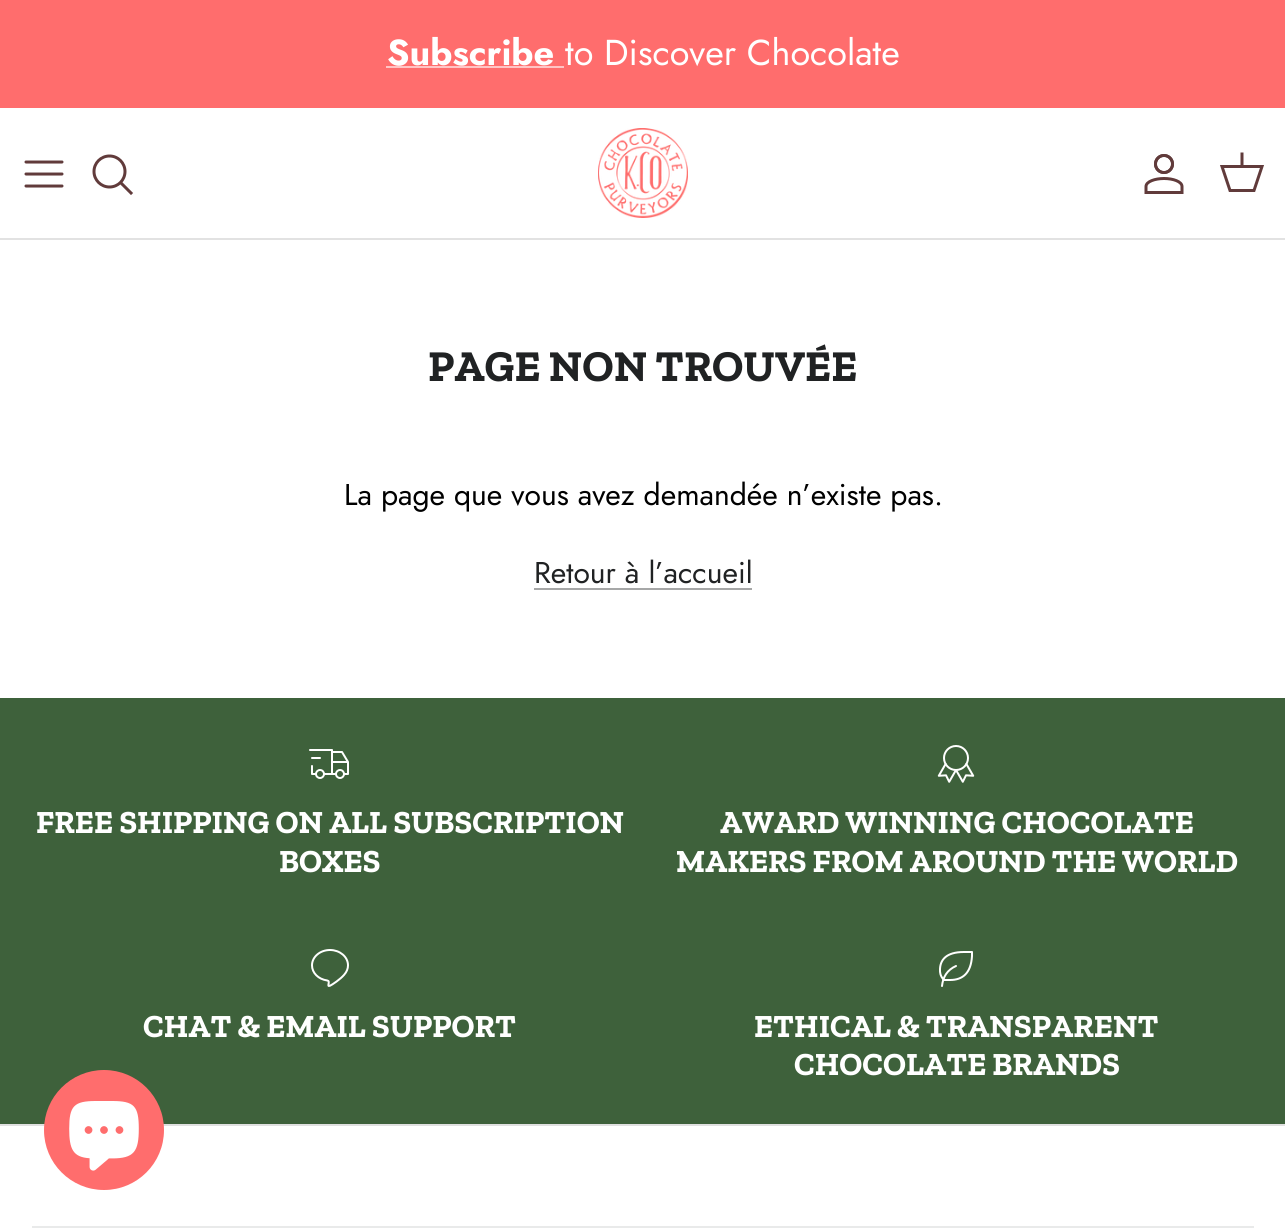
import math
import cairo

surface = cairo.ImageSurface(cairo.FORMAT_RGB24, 1285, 1231)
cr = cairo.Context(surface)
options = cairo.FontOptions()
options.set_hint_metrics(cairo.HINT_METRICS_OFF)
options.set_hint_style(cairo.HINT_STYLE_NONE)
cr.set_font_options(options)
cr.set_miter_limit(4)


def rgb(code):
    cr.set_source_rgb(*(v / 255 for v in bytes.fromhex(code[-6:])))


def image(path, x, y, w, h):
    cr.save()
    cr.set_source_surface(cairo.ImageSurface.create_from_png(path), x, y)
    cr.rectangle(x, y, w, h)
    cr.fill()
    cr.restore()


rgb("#ffffff")
cr.paint()
for x, y, w, h, color in [
    (0, 0, 1285, 108, "#ff6d6d"),
    (386, 66, 178, 2, "#ffc5c5"),
    (0, 238, 1285, 2, "#e2e2e2"),
]:
    rgb(color)
    cr.rectangle(x, y, w, h)
    cr.fill()
cr.new_path()
cr.move_to(26, 174)
cr.line_to(62, 174)
cr.move_to(26, 162)
cr.line_to(62, 162)
cr.move_to(26, 186)
cr.line_to(62, 186)
rgb("#613b3b")
cr.set_line_width(3)
cr.set_line_cap(cairo.LINE_CAP_ROUND)
cr.set_line_join(cairo.LINE_JOIN_ROUND)
cr.stroke()
cr.arc(109.5, 171.5, 15.5, 0, 2 * math.pi)
cr.set_line_cap(cairo.LINE_CAP_BUTT)
cr.set_line_join(cairo.LINE_JOIN_MITER)
cr.stroke()
cr.new_path()
cr.move_to(122, 184)
cr.line_to(131, 193)
cr.set_line_cap(cairo.LINE_CAP_SQUARE)
cr.stroke()
image("img/1.png", 598, 128, 90, 90)
image("img/2.png", 1144, 154, 40, 40)
cr.new_path()
cr.move_to(1222, 166.5)
cr.line_to(1262, 166.5)
cr.line_to(1254, 190.5)
cr.line_to(1230, 190.5)
cr.close_path()
cr.set_line_cap(cairo.LINE_CAP_BUTT)
cr.stroke()
cr.new_path()
cr.move_to(1242, 166)
cr.line_to(1242, 154)
cr.set_line_cap(cairo.LINE_CAP_SQUARE)
cr.stroke()
rgb("#a6a7a7")
cr.rectangle(534, 588, 218, 2)
cr.fill()
rgb("#3e613b")
cr.rectangle(0, 698, 1285, 426)
cr.fill()
image("img/3.png", 309, 749, 40, 30)
image("img/4.png", 937, 745, 38, 38)
image("img/5.png", 311, 949, 38, 38)
image("img/6.png", 939, 951, 34, 36)
rgb("#e0e0e0")
cr.rectangle(0, 1124, 1285, 2)
cr.fill()
rgb("#e9eaea")
cr.rectangle(32, 1226, 1222, 2)
cr.fill()
rgb("#ff6d6d")
cr.arc(104, 1130, 60, 0, 2 * math.pi)
cr.fill()
image("img/7.png", 69, 1101, 70, 70)
cr.select_font_face("Jost", cairo.FONT_SLANT_NORMAL, cairo.FONT_WEIGHT_BOLD)
cr.set_font_size(36)
rgb("#ffffff")
cr.move_to(387, 65)
cr.show_text("Subscribe")
cr.select_font_face("Jost")
cr.move_to(565, 65)
cr.show_text("to Discover Chocolate")
cr.select_font_face("Zilla Slab", cairo.FONT_SLANT_NORMAL, cairo.FONT_WEIGHT_BOLD)
cr.set_font_size(44)
rgb("#202223")
cr.move_to(428, 381)
cr.show_text("PAGE NON TROUVÉE")
cr.select_font_face("Jost")
cr.set_font_size(30)
rgb("#000000")
cr.move_to(344, 505)
cr.show_text("La page que vous avez demandée n’existe pas.")
rgb("#202223")
cr.move_to(534, 583)
cr.show_text("Retour à l’accueil")
cr.select_font_face("Zilla Slab", cairo.FONT_SLANT_NORMAL, cairo.FONT_WEIGHT_BOLD)
cr.set_font_size(32.25)
rgb("#ffffff")
for x, y, s in [
    (36, 833, "FREE SHIPPING ON ALL SUBSCRIPTION"),
    (279, 872, "BOXES"),
    (720, 833, "AWARD WINNING CHOCOLATE"),
    (676, 872, "MAKERS FROM AROUND THE WORLD"),
    (143, 1037, "CHAT & EMAIL SUPPORT"),
    (754, 1037, "ETHICAL & TRANSPARENT"),
    (794, 1075, "CHOCOLATE BRANDS"),
]:
    cr.move_to(x, y)
    cr.show_text(s)
surface.write_to_png("page.png")
